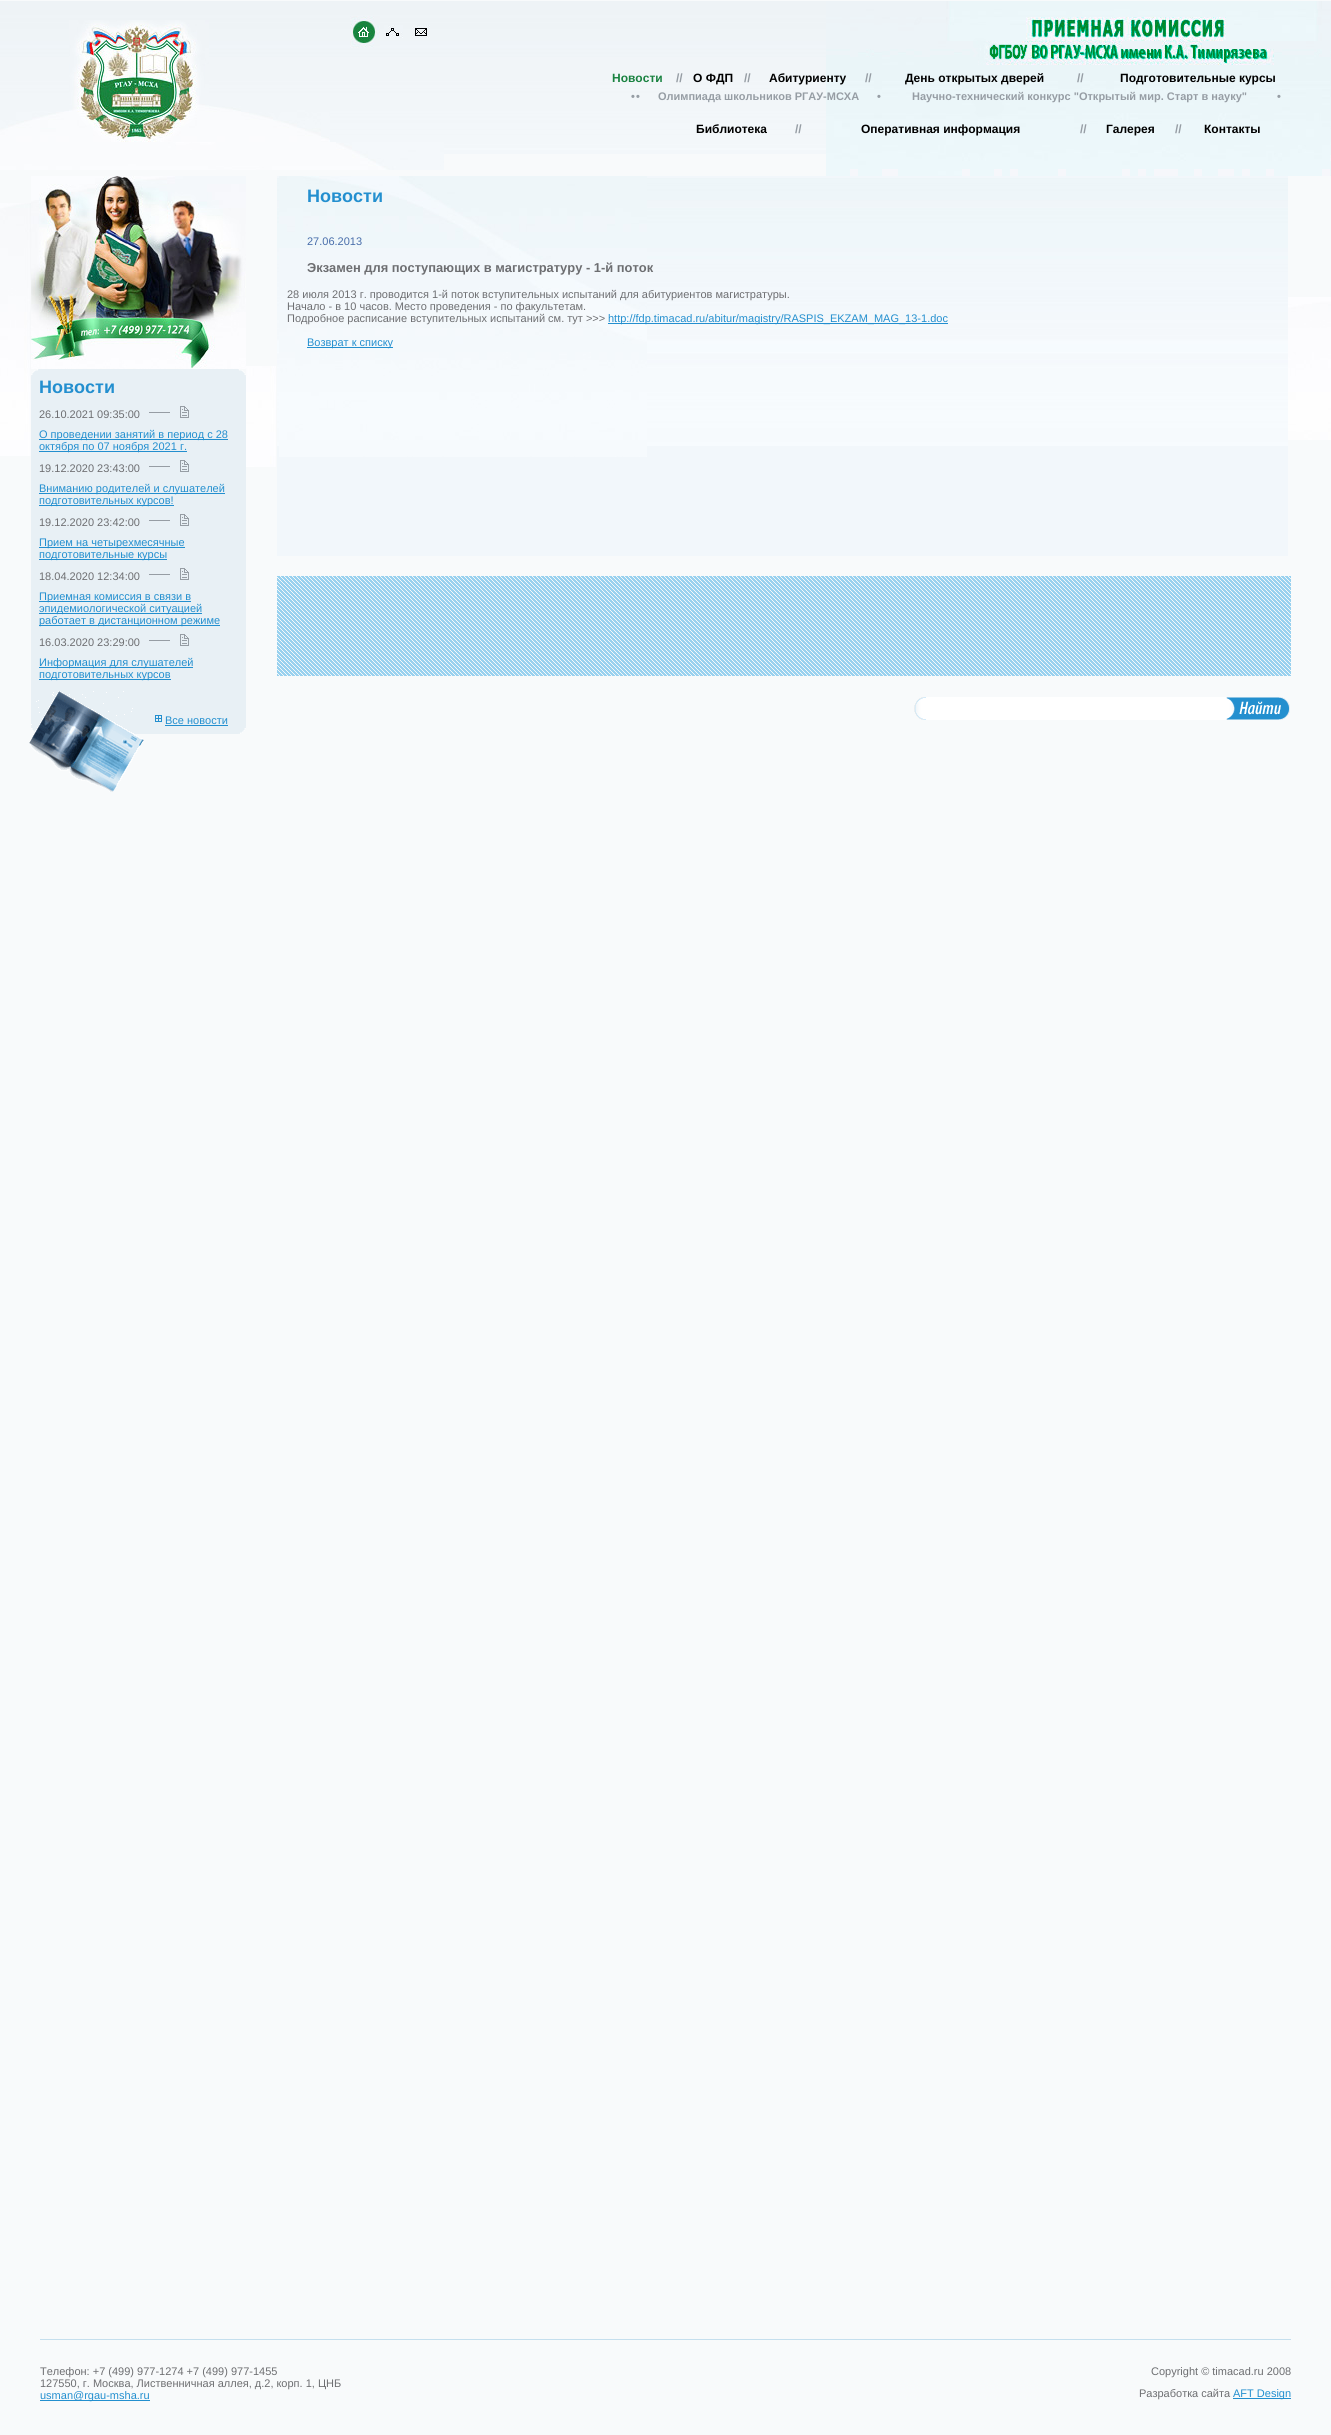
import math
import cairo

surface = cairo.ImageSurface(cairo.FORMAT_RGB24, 1331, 2435)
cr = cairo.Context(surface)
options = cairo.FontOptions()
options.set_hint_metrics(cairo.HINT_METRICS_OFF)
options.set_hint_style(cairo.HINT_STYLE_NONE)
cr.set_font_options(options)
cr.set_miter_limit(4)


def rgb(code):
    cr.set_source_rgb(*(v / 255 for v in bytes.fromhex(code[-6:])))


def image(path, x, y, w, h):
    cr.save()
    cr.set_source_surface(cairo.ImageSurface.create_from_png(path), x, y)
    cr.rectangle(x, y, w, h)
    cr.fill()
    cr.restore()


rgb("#f8fafb")
cr.paint()
image("img/1.png", 0, 1, 826, 153)
image("img/2.png", 0, 111, 69, 31)
image("img/3.png", 69, 20, 140, 122)
image("img/4.png", 209, 106, 121, 36)
image("img/5.png", 350, 16, 30, 32)
image("img/6.png", 384, 25, 19, 13)
image("img/7.png", 412, 25, 18, 13)
image("img/8.png", 0, 142, 444, 28)
image("img/9.png", 826, 1, 505, 175)
rgb("#f2f7fb")
cr.rectangle(277, 176, 1011, 380)
cr.fill()
image("img/10.png", 0, 203, 31, 253)
image("img/11.png", 31, 176, 215, 193)
image("img/12.png", 31, 369, 8, 8)
rgb("#e8f0f5")
cr.rectangle(39, 369, 199, 8)
cr.fill()
image("img/13.png", 238, 369, 8, 8)
cr.rectangle(31, 377, 215, 349)
cr.fill()
image("img/14.png", 149, 406, 40, 12)
rgb("#238fcf")
cr.rectangle(39, 439, 189, 1)
cr.fill()
cr.rectangle(39, 451, 148, 1)
cr.fill()
image("img/14.png", 149, 460, 40, 12)
cr.rectangle(39, 493, 186, 1)
cr.fill()
cr.rectangle(39, 505, 135, 1)
cr.fill()
image("img/14.png", 149, 514, 40, 12)
cr.rectangle(39, 547, 146, 1)
cr.fill()
cr.rectangle(39, 559, 128, 1)
cr.fill()
image("img/14.png", 149, 568, 40, 12)
for x, y, w, h, color in [
    (39, 601, 152, 1, "#238fcf"),
    (39, 613, 163, 1, "#238fcf"),
    (39, 625, 181, 1, "#238fcf"),
]:
    rgb(color)
    cr.rectangle(x, y, w, h)
    cr.fill()
image("img/14.png", 149, 634, 40, 12)
cr.rectangle(39, 667, 154, 1)
cr.fill()
cr.rectangle(39, 679, 132, 1)
cr.fill()
image("img/17.png", 31, 726, 7, 7)
rgb("#e8f0f5")
cr.rectangle(122, 726, 116, 8)
cr.fill()
image("img/15.png", 29, 691, 115, 101)
image("img/16.png", 155, 715, 7, 7)
rgb("#238fcf")
cr.rectangle(165, 725, 63, 1)
cr.fill()
image("img/18.png", 238, 726, 8, 8)
image("img/19.png", 246, 366, 30, 101)
image("img/20.png", 277, 178, 1011, 268)
image("img/21.png", 279, 176, 368, 281)
cr.rectangle(608, 323, 340, 1)
cr.fill()
cr.rectangle(307, 347, 86, 1)
cr.fill()
image("img/22.png", 1288, 297, 43, 143)
image("img/23.png", 277, 576, 1014, 100)
image("img/24.png", 914, 697, 12, 23)
rgb("#ffffff")
cr.rectangle(926, 697, 300, 23)
cr.fill()
image("img/25.png", 1226, 697, 64, 23)
for x, y, w, h, color in [
    (40, 2339, 1251, 1, "#c5dfee"),
    (40, 2400, 110, 1, "#238fcf"),
    (1233, 2398, 58, 1, "#238fcf"),
]:
    rgb(color)
    cr.rectangle(x, y, w, h)
    cr.fill()
cr.select_font_face("Liberation Sans", cairo.FONT_SLANT_NORMAL, cairo.FONT_WEIGHT_BOLD)
cr.set_font_size(12)
rgb("#198240")
cr.move_to(612, 82)
cr.show_text("Новости")
rgb("#969da4")
cr.move_to(676, 82)
cr.show_text("//")
rgb("#000000")
cr.move_to(693, 82)
cr.show_text("О ФДП")
rgb("#969da4")
cr.move_to(744, 82)
cr.show_text("//")
rgb("#000000")
cr.move_to(769, 82)
cr.show_text("Абитуриенту")
rgb("#969da4")
cr.move_to(865, 82)
cr.show_text("//")
rgb("#000000")
cr.move_to(905, 82)
cr.show_text("День открытых дверей")
rgb("#969da4")
cr.move_to(1077, 82)
cr.show_text("//")
rgb("#000000")
cr.move_to(1120, 82)
cr.show_text("Подготовительные курсы")
cr.set_font_size(11)
rgb("#969da4")
for x, y, s in [
    (631, 100, "•"),
    (636, 100, "•"),
    (658, 100, "Олимпиада школьников РГАУ-МСХА"),
    (877, 100, "•"),
    (912, 100, "Научно-технический конкурс \"Открытый мир. Старт в науку\""),
    (1277, 100, "•"),
]:
    cr.move_to(x, y)
    cr.show_text(s)
cr.set_font_size(12)
rgb("#000000")
cr.move_to(696, 133)
cr.show_text("Библиотека")
rgb("#969da4")
cr.move_to(795, 133)
cr.show_text("//")
rgb("#000000")
cr.move_to(861, 133)
cr.show_text("Оперативная информация")
rgb("#969da4")
cr.move_to(1080, 133)
cr.show_text("//")
rgb("#000000")
cr.move_to(1106, 133)
cr.show_text("Галерея")
rgb("#969da4")
cr.move_to(1175, 133)
cr.show_text("//")
rgb("#000000")
cr.move_to(1204, 133)
cr.show_text("Контакты")
cr.set_font_size(18)
rgb("#238fcf")
cr.move_to(39, 393)
cr.show_text("Новости")
cr.select_font_face("Liberation Sans")
cr.set_font_size(11)
rgb("#6d6e71")
cr.move_to(39, 418)
cr.show_text("26.10.2021 09:35:00")
rgb("#238fcf")
cr.move_to(39, 438)
cr.show_text("О проведении занятий в период с 28")
cr.move_to(39, 450)
cr.show_text("октября по 07 ноября 2021 г.")
rgb("#6d6e71")
cr.move_to(39, 472)
cr.show_text("19.12.2020 23:43:00")
rgb("#238fcf")
cr.move_to(39, 492)
cr.show_text("Вниманию родителей и слушателей")
cr.move_to(39, 504)
cr.show_text("подготовительных курсов!")
rgb("#6d6e71")
cr.move_to(39, 526)
cr.show_text("19.12.2020 23:42:00")
rgb("#238fcf")
cr.move_to(39, 546)
cr.show_text("Прием на четырехмесячные")
cr.move_to(39, 558)
cr.show_text("подготовительные курсы")
rgb("#6d6e71")
cr.move_to(39, 580)
cr.show_text("18.04.2020 12:34:00")
rgb("#238fcf")
for x, y, s in [
    (39, 600, "Приемная комиссия в связи в"),
    (39, 612, "эпидемиологической ситуацией"),
    (39, 624, "работает в дистанционном режиме"),
]:
    cr.move_to(x, y)
    cr.show_text(s)
rgb("#6d6e71")
cr.move_to(39, 646)
cr.show_text("16.03.2020 23:29:00")
rgb("#238fcf")
for x, y, s in [
    (39, 666, "Информация для слушателей"),
    (39, 678, "подготовительных курсов"),
    (165, 724, "Все новости"),
]:
    cr.move_to(x, y)
    cr.show_text(s)
cr.select_font_face("Liberation Sans", cairo.FONT_SLANT_NORMAL, cairo.FONT_WEIGHT_BOLD)
cr.set_font_size(18)
cr.move_to(307, 202)
cr.show_text("Новости")
cr.select_font_face("Liberation Sans")
cr.set_font_size(11)
rgb("#486daa")
cr.move_to(307, 245)
cr.show_text("27.06.2013")
cr.select_font_face("Liberation Sans", cairo.FONT_SLANT_NORMAL, cairo.FONT_WEIGHT_BOLD)
cr.set_font_size(12.9)
rgb("#6d6e71")
cr.move_to(307, 272)
cr.show_text("Экзамен для поступающих в магистратуру - 1-й поток")
cr.select_font_face("Liberation Sans")
cr.set_font_size(11)
for x, y, s in [
    (287, 298, "28 июля 2013 г. проводится 1-й поток вступительных испытаний для абитуриентов магистратуры."),
    (287, 310, "Начало - в 10 часов. Место проведения - по факультетам."),
    (287, 322, "Подробное расписание вступительных испытаний см. тут >>>"),
]:
    cr.move_to(x, y)
    cr.show_text(s)
rgb("#238fcf")
cr.move_to(608, 322)
cr.show_text("http://fdp.timacad.ru/abitur/magistry/RASPIS_EKZAM_MAG_13-1.doc")
cr.move_to(307, 346)
cr.show_text("Возврат к списку")
rgb("#6d6e71")
cr.move_to(40, 2375)
cr.show_text("Телефон: +7 (499) 977-1274 +7 (499) 977-1455")
cr.move_to(40, 2387)
cr.show_text("127550, г. Москва, Лиственничная аллея, д.2, корп. 1, ЦНБ")
rgb("#238fcf")
cr.move_to(40, 2399)
cr.show_text("usman@rgau-msha.ru")
rgb("#6d6e71")
cr.move_to(1151, 2375)
cr.show_text("Copyright © timacad.ru 2008")
cr.move_to(1139, 2397)
cr.show_text("Разработка сайта")
rgb("#238fcf")
cr.move_to(1233, 2397)
cr.show_text("AFT Design")
surface.write_to_png("page.png")
